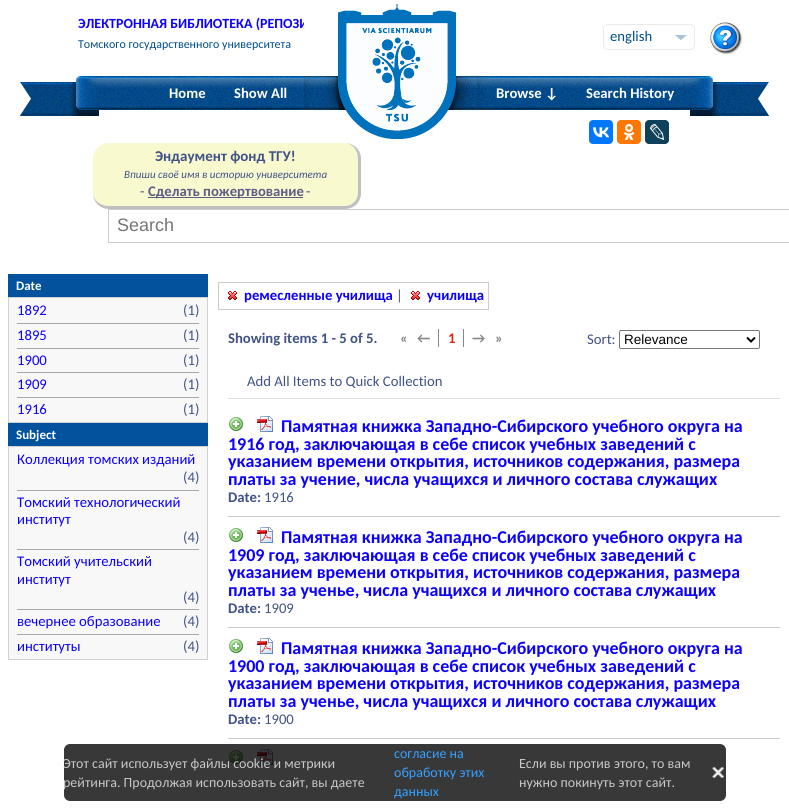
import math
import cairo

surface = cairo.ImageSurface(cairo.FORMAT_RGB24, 789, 808)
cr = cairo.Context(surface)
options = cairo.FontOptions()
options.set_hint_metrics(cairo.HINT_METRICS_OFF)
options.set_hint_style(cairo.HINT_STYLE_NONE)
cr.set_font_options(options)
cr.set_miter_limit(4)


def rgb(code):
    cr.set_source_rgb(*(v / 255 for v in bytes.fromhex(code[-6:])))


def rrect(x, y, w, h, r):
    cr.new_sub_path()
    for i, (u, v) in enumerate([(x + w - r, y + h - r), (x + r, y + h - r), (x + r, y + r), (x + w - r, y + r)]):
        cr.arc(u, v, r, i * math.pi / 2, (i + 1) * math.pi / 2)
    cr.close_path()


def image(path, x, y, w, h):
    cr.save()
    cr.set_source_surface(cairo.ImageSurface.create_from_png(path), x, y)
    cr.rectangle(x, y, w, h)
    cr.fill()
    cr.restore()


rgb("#ffffff")
cr.paint()
rrect(603.5, 24.5, 91, 25, 4.5)
rgb("#ebe9e9")
cr.set_line_width(1)
cr.stroke()
image("img/1.png", 675, 35, 12, 5)
image("img/2.png", 710, 22, 32, 32)
image("img/3.png", 20, 76, 95, 40)
image("img/4.png", 115, 76, 559, 34)
image("img/6.png", 674, 76, 95, 40)
rgb("#f9f9d0")
cr.new_path()
cr.move_to(109, 143)
cr.line_to(345, 143)
cr.curve_to(352, 143, 358, 150, 358, 159)
cr.line_to(358, 193)
cr.curve_to(358, 200, 352, 206, 345, 206)
cr.line_to(109, 206)
cr.curve_to(100, 206, 93, 200, 93, 193)
cr.line_to(93, 159)
cr.curve_to(93, 150, 100, 143, 109, 143)
cr.close_path()
cr.fill()
rgb("#c0c0c0")
cr.set_fill_rule(cairo.FILL_RULE_EVEN_ODD)
cr.new_path()
cr.move_to(109, 143)
cr.line_to(345, 143)
cr.curve_to(354, 143, 361, 150, 361, 159)
cr.line_to(361, 193)
cr.curve_to(361, 202, 354, 209, 345, 209)
cr.line_to(109, 209)
cr.curve_to(100, 209, 93, 202, 93, 193)
cr.line_to(93, 159)
cr.curve_to(93, 150, 100, 143, 109, 143)
cr.close_path()
cr.move_to(109, 143)
cr.line_to(345, 143)
cr.curve_to(352, 143, 358, 150, 358, 159)
cr.line_to(358, 193)
cr.curve_to(358, 200, 352, 206, 345, 206)
cr.line_to(109, 206)
cr.curve_to(100, 206, 93, 200, 93, 193)
cr.line_to(93, 159)
cr.curve_to(93, 150, 100, 143, 109, 143)
cr.close_path()
cr.fill()
rgb("#5d5d86")
cr.rectangle(148, 197, 155, 1)
cr.fill()
cr.rectangle(108.5, 209.5, 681, 33)
rgb("#cccccc")
cr.stroke()
for x, y, w, h, color in [
    (8, 422, 200, 1, "#d0d0d0"),
    (8, 274, 200, 23, "#02529d"),
    (8, 297, 200, 1, "#d0d0d0"),
    (9, 298, 198, 124, "#f8f8f8"),
    (207, 298, 1, 124, "#d0d0d0"),
    (8, 298, 1, 124, "#d0d0d0"),
    (17, 323, 182, 1, "#aaaaaa"),
    (17, 348, 182, 1, "#aaaaaa"),
    (17, 372, 182, 1, "#aaaaaa"),
    (17, 397, 182, 1, "#aaaaaa"),
    (8, 659, 200, 1, "#d0d0d0"),
    (8, 423, 200, 23, "#02529d"),
    (8, 446, 200, 1, "#d0d0d0"),
    (9, 447, 198, 212, "#f8f8f8"),
    (207, 447, 1, 212, "#d0d0d0"),
    (8, 447, 1, 212, "#d0d0d0"),
    (17, 490, 182, 1, "#aaaaaa"),
    (17, 549, 182, 1, "#aaaaaa"),
    (17, 609, 182, 1, "#aaaaaa"),
    (17, 634, 182, 1, "#aaaaaa"),
]:
    rgb(color)
    cr.rectangle(x, y, w, h)
    cr.fill()
cr.rectangle(218.5, 282.5, 270, 27)
rgb("#cccccc")
cr.stroke()
image("img/7.png", 228, 291, 9, 9)
image("img/7.png", 411, 291, 9, 9)
rgb("#0077ff")
rrect(589, 120, 24, 24, 4)
cr.fill()
image("img/8.png", 593, 127, 16, 11)
rgb("#ff7700")
rrect(617, 120, 24, 24, 4)
cr.fill()
image("img/9.png", 623, 124, 12, 16)
rgb("#0d425a")
rrect(645, 120, 24, 24, 4)
cr.fill()
image("img/10.png", 650, 124, 15, 16)
rgb("#888888")
cr.rectangle(438, 329, 1, 18)
cr.fill()
cr.rectangle(463, 329, 1, 18)
cr.fill()
rrect(619.5, 330.5, 140, 18, 1.5)
rgb("#767676")
cr.stroke()
cr.new_path()
cr.move_to(747, 337.5)
cr.line_to(751, 341.5)
cr.line_to(755, 337.5)
rgb("#000000")
cr.set_line_width(2)
cr.stroke()
rgb("#e0e0e0")
cr.rectangle(228, 398, 552, 1)
cr.fill()
rgb("#cccccc")
cr.rectangle(228, 516, 552, 1)
cr.fill()
image("img/11.png", 229, 417, 14, 14)
image("img/12.png", 257, 416, 16, 16)
cr.rectangle(228, 627, 552, 1)
cr.fill()
image("img/11.png", 229, 528, 14, 14)
image("img/12.png", 257, 527, 16, 16)
cr.rectangle(228, 738, 552, 1)
cr.fill()
image("img/11.png", 229, 639, 14, 14)
image("img/12.png", 257, 638, 16, 16)
image("img/11.png", 229, 750, 14, 14)
image("img/12.png", 257, 749, 16, 16)
cr.set_source_rgba(0, 0, 0, 0.78)
rrect(64, 744, 662, 57, 6)
cr.fill()
image("img/13.png", 712, 767, 12, 11)
cr.select_font_face("Carlito", cairo.FONT_SLANT_NORMAL, cairo.FONT_WEIGHT_BOLD)
cr.set_font_size(14)
rgb("#0c00ff")
cr.move_to(78, 28)
cr.show_text("ЭЛЕКТРОННАЯ БИБЛИОТЕКА (РЕПОЗИ")
cr.select_font_face("Carlito")
cr.set_font_size(12)
rgb("#004e8b")
cr.move_to(78, 48)
cr.show_text("Томского государственного университета")
cr.set_font_size(14.7)
cr.move_to(610, 41)
cr.show_text("english")
cr.select_font_face("Carlito", cairo.FONT_SLANT_NORMAL, cairo.FONT_WEIGHT_BOLD)
rgb("#ffffff")
cr.move_to(169, 98)
cr.show_text("Home")
cr.move_to(234, 98)
cr.show_text("Show All")
image("img/5.png", 304, 4, 183, 135)
cr.move_to(496, 98)
cr.show_text("Browse ↓")
cr.move_to(586, 98)
cr.show_text("Search History")
cr.set_font_size(15)
rgb("#405286")
cr.move_to(155, 161)
cr.show_text("Эндаумент фонд ТГУ!")
cr.select_font_face("Carlito", cairo.FONT_SLANT_ITALIC)
cr.set_font_size(11)
cr.move_to(124, 178)
cr.show_text("Впиши своё имя в историю университета")
cr.select_font_face("Carlito")
cr.set_font_size(14.7)
cr.move_to(140, 196)
cr.show_text("-")
cr.select_font_face("Carlito", cairo.FONT_SLANT_NORMAL, cairo.FONT_WEIGHT_BOLD)
rgb("#5d5d86")
cr.move_to(148, 196)
cr.show_text("Сделать пожертвование")
cr.select_font_face("Carlito")
rgb("#405286")
cr.move_to(306, 196)
cr.show_text("-")
cr.select_font_face("Liberation Sans")
cr.set_font_size(18)
rgb("#757575")
cr.move_to(117, 231)
cr.show_text("Search")
cr.select_font_face("Carlito", cairo.FONT_SLANT_NORMAL, cairo.FONT_WEIGHT_BOLD)
cr.set_font_size(13)
rgb("#ffffff")
cr.move_to(16, 290)
cr.show_text("Date")
cr.select_font_face("Carlito")
cr.set_font_size(14.7)
rgb("#0c00ff")
cr.move_to(17, 315)
cr.show_text("1892")
rgb("#405286")
cr.move_to(183, 315)
cr.show_text("(1)")
rgb("#0c00ff")
cr.move_to(17, 340)
cr.show_text("1895")
rgb("#405286")
cr.move_to(183, 340)
cr.show_text("(1)")
rgb("#0c00ff")
cr.move_to(17, 365)
cr.show_text("1900")
rgb("#405286")
cr.move_to(183, 365)
cr.show_text("(1)")
rgb("#0c00ff")
cr.move_to(17, 389)
cr.show_text("1909")
rgb("#405286")
cr.move_to(183, 389)
cr.show_text("(1)")
rgb("#0c00ff")
cr.move_to(17, 414)
cr.show_text("1916")
rgb("#405286")
cr.move_to(183, 414)
cr.show_text("(1)")
cr.select_font_face("Carlito", cairo.FONT_SLANT_NORMAL, cairo.FONT_WEIGHT_BOLD)
cr.set_font_size(13)
rgb("#ffffff")
cr.move_to(16, 439)
cr.show_text("Subject")
cr.select_font_face("Carlito")
cr.set_font_size(14.7)
rgb("#0c00ff")
cr.move_to(17, 464)
cr.show_text("Коллекция томских изданий")
rgb("#405286")
cr.move_to(183, 482)
cr.show_text("(4)")
rgb("#0c00ff")
cr.move_to(17, 507)
cr.show_text("Томский технологический")
cr.move_to(17, 524)
cr.show_text("институт")
rgb("#405286")
cr.move_to(183, 542)
cr.show_text("(4)")
rgb("#0c00ff")
cr.move_to(17, 566)
cr.show_text("Томский учительский")
cr.move_to(17, 584)
cr.show_text("институт")
rgb("#405286")
cr.move_to(183, 602)
cr.show_text("(4)")
rgb("#0c00ff")
cr.move_to(17, 626)
cr.show_text("вечернее образование")
rgb("#405286")
cr.move_to(183, 626)
cr.show_text("(4)")
rgb("#0c00ff")
cr.move_to(17, 651)
cr.show_text("институты")
rgb("#405286")
cr.move_to(183, 651)
cr.show_text("(4)")
cr.select_font_face("Carlito", cairo.FONT_SLANT_NORMAL, cairo.FONT_WEIGHT_BOLD)
rgb("#0c00ff")
cr.move_to(244, 300)
cr.show_text("ремесленные училища")
cr.select_font_face("Carlito")
rgb("#405286")
cr.move_to(396, 300)
cr.show_text("|")
cr.select_font_face("Carlito", cairo.FONT_SLANT_NORMAL, cairo.FONT_WEIGHT_BOLD)
rgb("#0c00ff")
cr.move_to(427, 300)
cr.show_text("училища")
rgb("#405286")
cr.move_to(228, 343)
cr.show_text("Showing items 1 - 5 of 5.")
rgb("#888888")
cr.move_to(400, 343)
cr.show_text("«")
cr.move_to(417, 343)
cr.show_text("←")
rgb("#de290a")
cr.move_to(448, 343)
cr.show_text("1")
rgb("#888888")
cr.move_to(472, 343)
cr.show_text("→")
cr.move_to(495, 343)
cr.show_text("»")
cr.select_font_face("Carlito")
rgb("#405286")
cr.move_to(587, 344)
cr.show_text("Sort:")
cr.select_font_face("Liberation Sans")
cr.set_font_size(13.5)
rgb("#000000")
cr.move_to(624, 344)
cr.show_text("Relevance")
cr.select_font_face("Carlito")
cr.set_font_size(14.7)
rgb("#405286")
cr.move_to(247, 386)
cr.show_text("Add All Items to Quick Collection")
cr.select_font_face("Carlito", cairo.FONT_SLANT_NORMAL, cairo.FONT_WEIGHT_BOLD)
cr.set_font_size(18)
rgb("#0c00ff")
for x, y, s in [
    (281, 432, "Памятная книжка Западно-Сибирского учебного округа на"),
    (228, 450, "1916 год, заключающая в себе список учебных заведений c"),
    (228, 467, "указанием времени открытия, источников содержания, размера"),
    (228, 485, "платы за учение, числа учащихся и личного состава служащих"),
]:
    cr.move_to(x, y)
    cr.show_text(s)
cr.set_font_size(14.7)
rgb("#405286")
cr.move_to(228, 502)
cr.show_text("Date:")
cr.select_font_face("Carlito")
cr.move_to(264, 502)
cr.show_text("1916")
cr.select_font_face("Carlito", cairo.FONT_SLANT_NORMAL, cairo.FONT_WEIGHT_BOLD)
cr.set_font_size(18)
rgb("#0c00ff")
for x, y, s in [
    (281, 543, "Памятная книжка Западно-Сибирского учебного округа на"),
    (228, 561, "1909 год, заключающая в себе список учебных заведений c"),
    (228, 578, "указанием времени открытия, источников содержания, размера"),
    (228, 596, "платы за ученье, числа учащихся и личного состава служащих"),
]:
    cr.move_to(x, y)
    cr.show_text(s)
cr.set_font_size(14.7)
rgb("#405286")
cr.move_to(228, 613)
cr.show_text("Date:")
cr.select_font_face("Carlito")
cr.move_to(264, 613)
cr.show_text("1909")
cr.select_font_face("Carlito", cairo.FONT_SLANT_NORMAL, cairo.FONT_WEIGHT_BOLD)
cr.set_font_size(18)
rgb("#0c00ff")
for x, y, s in [
    (281, 654, "Памятная книжка Западно-Сибирского учебного округа на"),
    (228, 672, "1900 год, заключающая в себе список учебных заведений c"),
    (228, 689, "указанием времени открытия, источников содержания, размера"),
    (228, 707, "платы за ученье, числа учащихся и личного состава служащих"),
]:
    cr.move_to(x, y)
    cr.show_text(s)
cr.set_font_size(14.7)
rgb("#405286")
cr.move_to(228, 724)
cr.show_text("Date:")
cr.select_font_face("Carlito")
cr.move_to(264, 724)
cr.show_text("1900")
cr.set_font_size(14)
rgb("#c7c7c7")
cr.move_to(63, 768)
cr.show_text("Этот сайт использует файлы cookie и метрики")
rgb("#34a0ff")
for x, y, s in [
    (394, 758, "согласие на"),
    (394, 777, "обработку этих"),
    (394, 796, "данных"),
]:
    cr.move_to(x, y)
    cr.show_text(s)
rgb("#c7c7c7")
for x, y, s in [
    (519, 768, "Если вы против этого, то вам"),
    (63, 787, "рейтинга. Продолжая использовать сайт, вы даете"),
    (519, 787, "нужно покинуть этот сайт."),
]:
    cr.move_to(x, y)
    cr.show_text(s)
surface.write_to_png("page.png")
